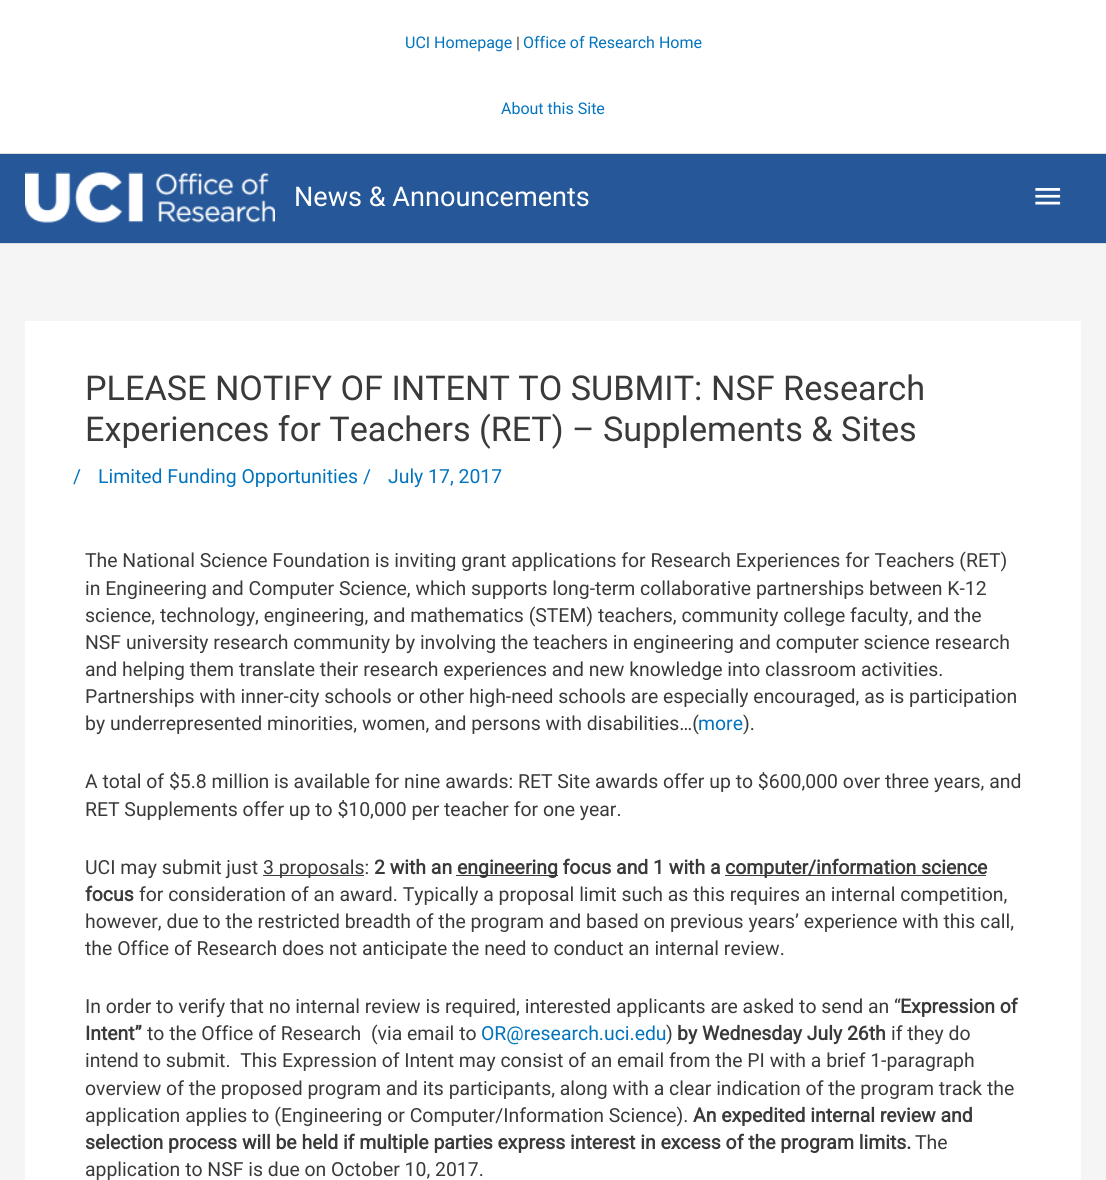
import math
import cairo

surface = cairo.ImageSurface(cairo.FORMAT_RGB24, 1106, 1180)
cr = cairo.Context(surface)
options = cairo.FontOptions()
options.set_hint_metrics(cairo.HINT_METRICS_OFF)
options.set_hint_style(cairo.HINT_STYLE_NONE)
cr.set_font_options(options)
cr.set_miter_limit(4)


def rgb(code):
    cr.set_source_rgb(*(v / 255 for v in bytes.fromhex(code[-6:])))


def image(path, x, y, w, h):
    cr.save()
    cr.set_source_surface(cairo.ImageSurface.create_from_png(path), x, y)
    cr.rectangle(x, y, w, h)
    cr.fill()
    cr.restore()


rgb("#f5f5f5")
cr.paint()
for x, y, w, h, color in [
    (0, 0, 1106, 153, "#ffffff"),
    (0, 153, 1106, 1, "#dddddd"),
    (0, 154, 1106, 89, "#255799"),
    (0, 243, 1106, 1, "#dddddd"),
]:
    rgb(color)
    cr.rectangle(x, y, w, h)
    cr.fill()
image("img/1.png", 25, 172, 250, 51)
image("img/2.png", 1035, 188, 26, 17)
for x, y, w, h, color in [
    (25, 321, 1056, 859, "#ffffff"),
    (263, 875, 101, 1, "#3a3a3a"),
    (456, 875, 102, 1, "#3a3a3a"),
    (725, 875, 261, 1, "#3a3a3a"),
]:
    rgb(color)
    cr.rectangle(x, y, w, h)
    cr.fill()
cr.select_font_face("Roboto")
cr.set_font_size(16)
rgb("#0274be")
cr.move_to(405, 48)
cr.show_text("UCI Homepage")
rgb("#3a3a3a")
cr.move_to(516, 48)
cr.show_text("|")
rgb("#0274be")
cr.move_to(523, 48)
cr.show_text("Office of Research Home")
cr.move_to(501, 114)
cr.show_text("About this Site")
cr.set_font_size(27.1)
rgb("#ffffff")
cr.move_to(294, 206)
cr.show_text("News & Announcements")
cr.set_font_size(34.2)
rgb("#3a3a3a")
for x, y, s in [
    (85, 400, "PLEASE NOTIFY OF INTENT TO SUBMIT:"),
    (711, 400, "NSF Research"),
    (85, 441, "Experiences for Teachers (RET) – Supplements & Sites"),
]:
    cr.move_to(x, y)
    cr.show_text(s)
cr.set_font_size(19.4)
rgb("#0274be")
for x, y, s in [
    (73, 483, "/"),
    (98, 483, "Limited Funding Opportunities /"),
    (388, 483, "July 17, 2017"),
]:
    cr.move_to(x, y)
    cr.show_text(s)
rgb("#3a3a3a")
for x, y, s in [
    (85, 567, "The National Science Foundation is inviting grant applications for Research Experiences for Teachers (RET)"),
    (85, 595, "in Engineering and Computer Science, which supports long-term collaborative partnerships between K-12"),
    (85, 622, "science, technology, engineering, and mathematics (STEM) teachers, community college faculty, and the"),
    (85, 649, "NSF university research community by involving the teachers in engineering and computer science research"),
    (85, 676, "and helping them translate their research experiences and new knowledge into classroom activities."),
    (85, 703, "Partnerships with inner-city schools or other high-need schools are especially encouraged, as is participation"),
    (85, 730, "by underrepresented minorities, women, and persons with disabilities…("),
]:
    cr.move_to(x, y)
    cr.show_text(s)
rgb("#0274be")
cr.move_to(698, 730)
cr.show_text("more")
rgb("#3a3a3a")
for x, y, s in [
    (743, 730, ")."),
    (85, 788, "A total of $5.8 million is available for nine awards: RET Site awards offer up to $600,000 over three years, and"),
    (85, 816, "RET Supplements offer up to $10,000 per teacher for one year."),
    (85, 874, "UCI may submit just"),
    (263, 874, "3 proposals:"),
]:
    cr.move_to(x, y)
    cr.show_text(s)
cr.select_font_face("Roboto", cairo.FONT_SLANT_NORMAL, cairo.FONT_WEIGHT_BOLD)
for x, y, s in [
    (374, 874, "2 with an"),
    (457, 874, "engineering focus and 1 with a"),
    (725, 874, "computer/information science"),
    (85, 901, "focus"),
]:
    cr.move_to(x, y)
    cr.show_text(s)
cr.select_font_face("Roboto")
for x, y, s in [
    (139, 901, "for consideration of an award. Typically a proposal limit such as this requires an internal competition,"),
    (85, 928, "however, due to the restricted breadth of the program and based on previous years’ experience with this call,"),
    (85, 955, "the Office of Research does not anticipate the need to conduct an internal review."),
    (85, 1013, "In order to verify that no internal review is required, interested applicants are asked to send an “"),
]:
    cr.move_to(x, y)
    cr.show_text(s)
cr.select_font_face("Roboto", cairo.FONT_SLANT_NORMAL, cairo.FONT_WEIGHT_BOLD)
cr.move_to(900, 1013)
cr.show_text("Expression of")
cr.move_to(85, 1040)
cr.show_text("Intent”")
cr.select_font_face("Roboto")
cr.move_to(147, 1040)
cr.show_text("to the Office of Research  (via email to")
rgb("#0274be")
cr.move_to(481, 1040)
cr.show_text("OR@research.uci.edu")
rgb("#3a3a3a")
cr.move_to(666, 1040)
cr.show_text(")")
cr.select_font_face("Roboto", cairo.FONT_SLANT_NORMAL, cairo.FONT_WEIGHT_BOLD)
cr.move_to(677, 1040)
cr.show_text("by Wednesday July 26th")
cr.select_font_face("Roboto")
for x, y, s in [
    (891, 1040, "if they do"),
    (85, 1067, "intend to submit.  This Expression of Intent may consist of an email from the PI with a brief 1-paragraph"),
    (85, 1095, "overview of the proposed program and its participants, along with a clear indication of the program track the"),
    (85, 1122, "application applies to (Engineering or Computer/Information Science)."),
]:
    cr.move_to(x, y)
    cr.show_text(s)
cr.select_font_face("Roboto", cairo.FONT_SLANT_NORMAL, cairo.FONT_WEIGHT_BOLD)
cr.move_to(693, 1122)
cr.show_text("An expedited internal review and")
cr.move_to(85, 1149)
cr.show_text("selection process will be held if multiple parties express interest in excess of the program limits.")
cr.select_font_face("Roboto")
cr.move_to(915, 1149)
cr.show_text("The")
cr.move_to(85, 1176)
cr.show_text("application to NSF is due on October 10, 2017.")
surface.write_to_png("page.png")
